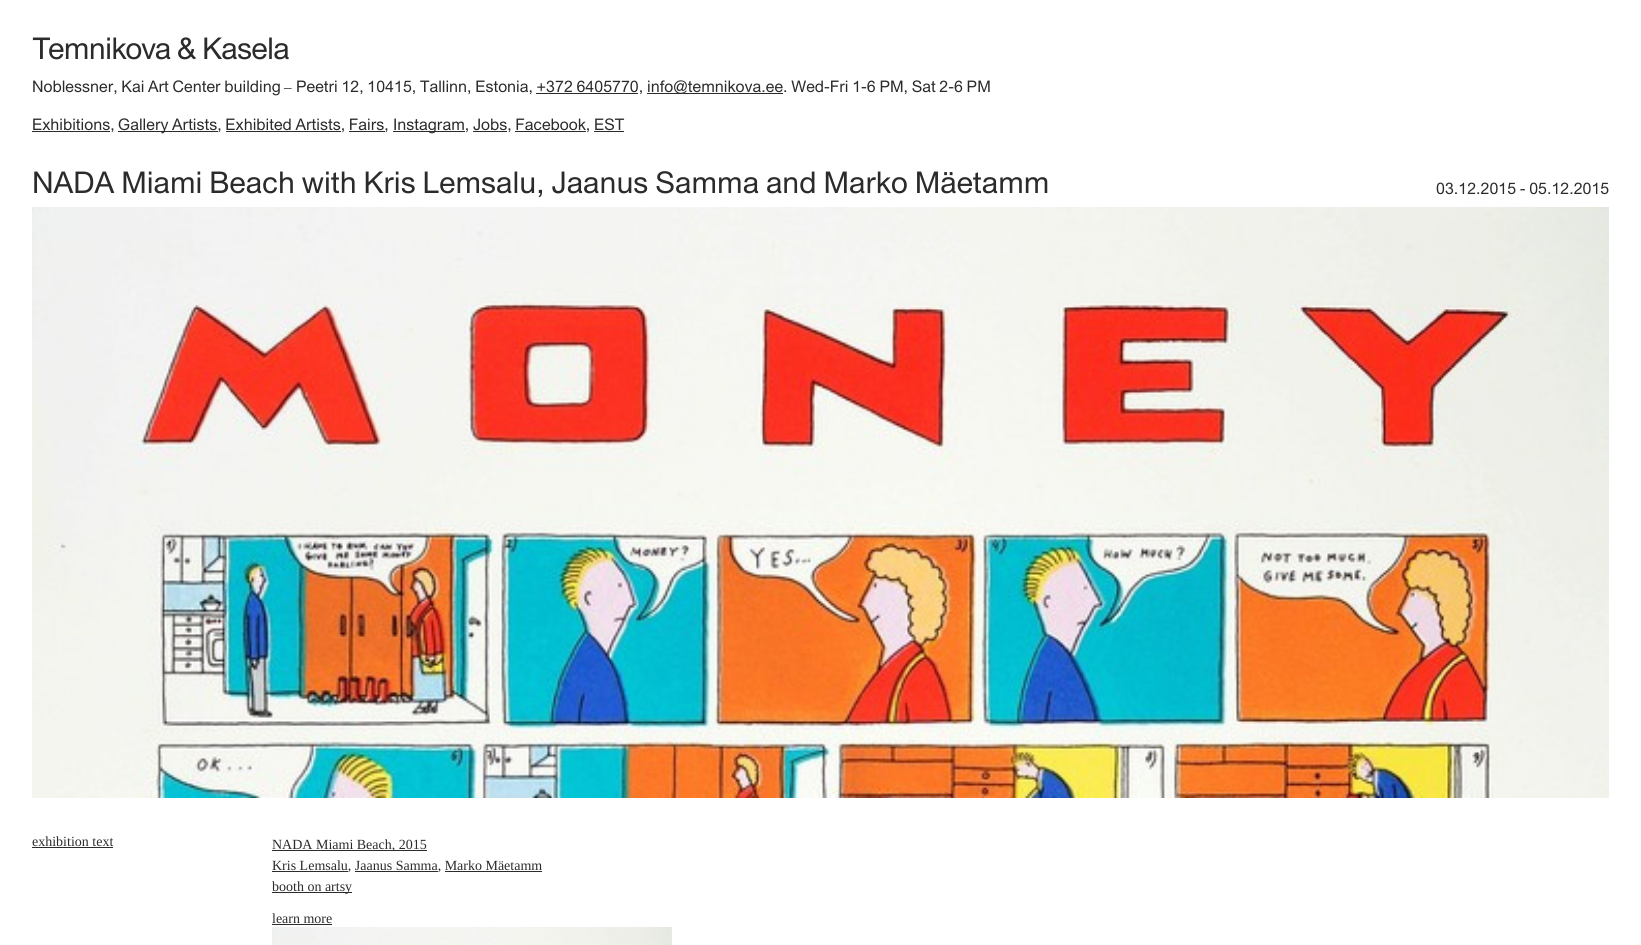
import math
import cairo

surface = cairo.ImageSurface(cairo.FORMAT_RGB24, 1641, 945)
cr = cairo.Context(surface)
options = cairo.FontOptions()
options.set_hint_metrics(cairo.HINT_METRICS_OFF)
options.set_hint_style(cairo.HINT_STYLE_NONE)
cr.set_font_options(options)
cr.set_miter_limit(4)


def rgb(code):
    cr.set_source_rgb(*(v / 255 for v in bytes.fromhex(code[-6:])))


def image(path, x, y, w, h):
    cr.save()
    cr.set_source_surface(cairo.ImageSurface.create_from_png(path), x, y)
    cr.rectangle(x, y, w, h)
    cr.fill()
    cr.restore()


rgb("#ffffff")
cr.paint()
image("img/1.png", 32, 37, 257, 23)
for x, y, w, h, color in [
    (647, 93, 136, 1, "#2b2b2b"),
    (536, 93, 102, 1, "#2b2b2b"),
    (32, 131, 78, 1, "#2b2b2b"),
    (118, 131, 100, 1, "#2b2b2b"),
    (393, 131, 72, 1, "#2b2b2b"),
    (226, 131, 115, 1, "#2b2b2b"),
    (349, 131, 36, 1, "#2b2b2b"),
    (473, 131, 34, 1, "#2b2b2b"),
    (515, 131, 71, 1, "#2b2b2b"),
    (594, 131, 30, 1, "#2b2b2b"),
]:
    rgb(color)
    cr.rectangle(x, y, w, h)
    cr.fill()
image("img/2.png", 32, 207, 1577, 591)
for x, y, w, h, color in [
    (32, 847, 81, 1, "#2b2b2b"),
    (272, 850, 155, 1, "#2b2b2b"),
    (272, 871, 76, 1, "#2b2b2b"),
    (355, 871, 83, 1, "#2b2b2b"),
    (445, 871, 97, 1, "#2b2b2b"),
    (272, 892, 80, 1, "#2b2b2b"),
    (272, 924, 60, 1, "#2b2b2b"),
]:
    rgb(color)
    cr.rectangle(x, y, w, h)
    cr.fill()
image("img/3.png", 272, 927, 400, 18)
cr.select_font_face("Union")
cr.set_font_size(16)
cr.move_to(32, 92)
cr.show_text("Noblessner, Kai Art Center building")
cr.select_font_face("Liberation Serif")
cr.set_font_size(15)
cr.move_to(284, 92)
cr.show_text("–")
cr.select_font_face("Union")
cr.set_font_size(16)
for x, y, s in [
    (296, 92, "Peetri 12, 10415, Tallinn, Estonia, +372 6405770,"),
    (647, 92, "info@temnikova.ee. Wed-Fri 1-6 PM, Sat 2-6 PM"),
    (32, 130, "Exhibitions,"),
    (118, 130, "Gallery Artists, Exhibited Artists, Fairs,"),
    (393, 130, "Instagram, Jobs, Facebook, EST"),
]:
    cr.move_to(x, y)
    cr.show_text(s)
cr.set_font_size(30)
cr.move_to(32, 193)
cr.show_text("NADA Miami Beach with Kris Lemsalu, Jaanus Samma and Marko Mäetamm")
cr.set_font_size(16)
cr.move_to(1436, 194)
cr.show_text("03.12.2015 - 05.12.2015")
cr.select_font_face("Liberation Serif")
cr.set_font_size(14)
for x, y, s in [
    (32, 846, "exhibition text"),
    (272, 849, "NADA Miami Beach, 2015"),
    (272, 870, "Kris Lemsalu, Jaanus Samma, Marko Mäetamm"),
    (272, 891, "booth on artsy"),
    (272, 923, "learn more"),
]:
    cr.move_to(x, y)
    cr.show_text(s)
surface.write_to_png("page.png")
